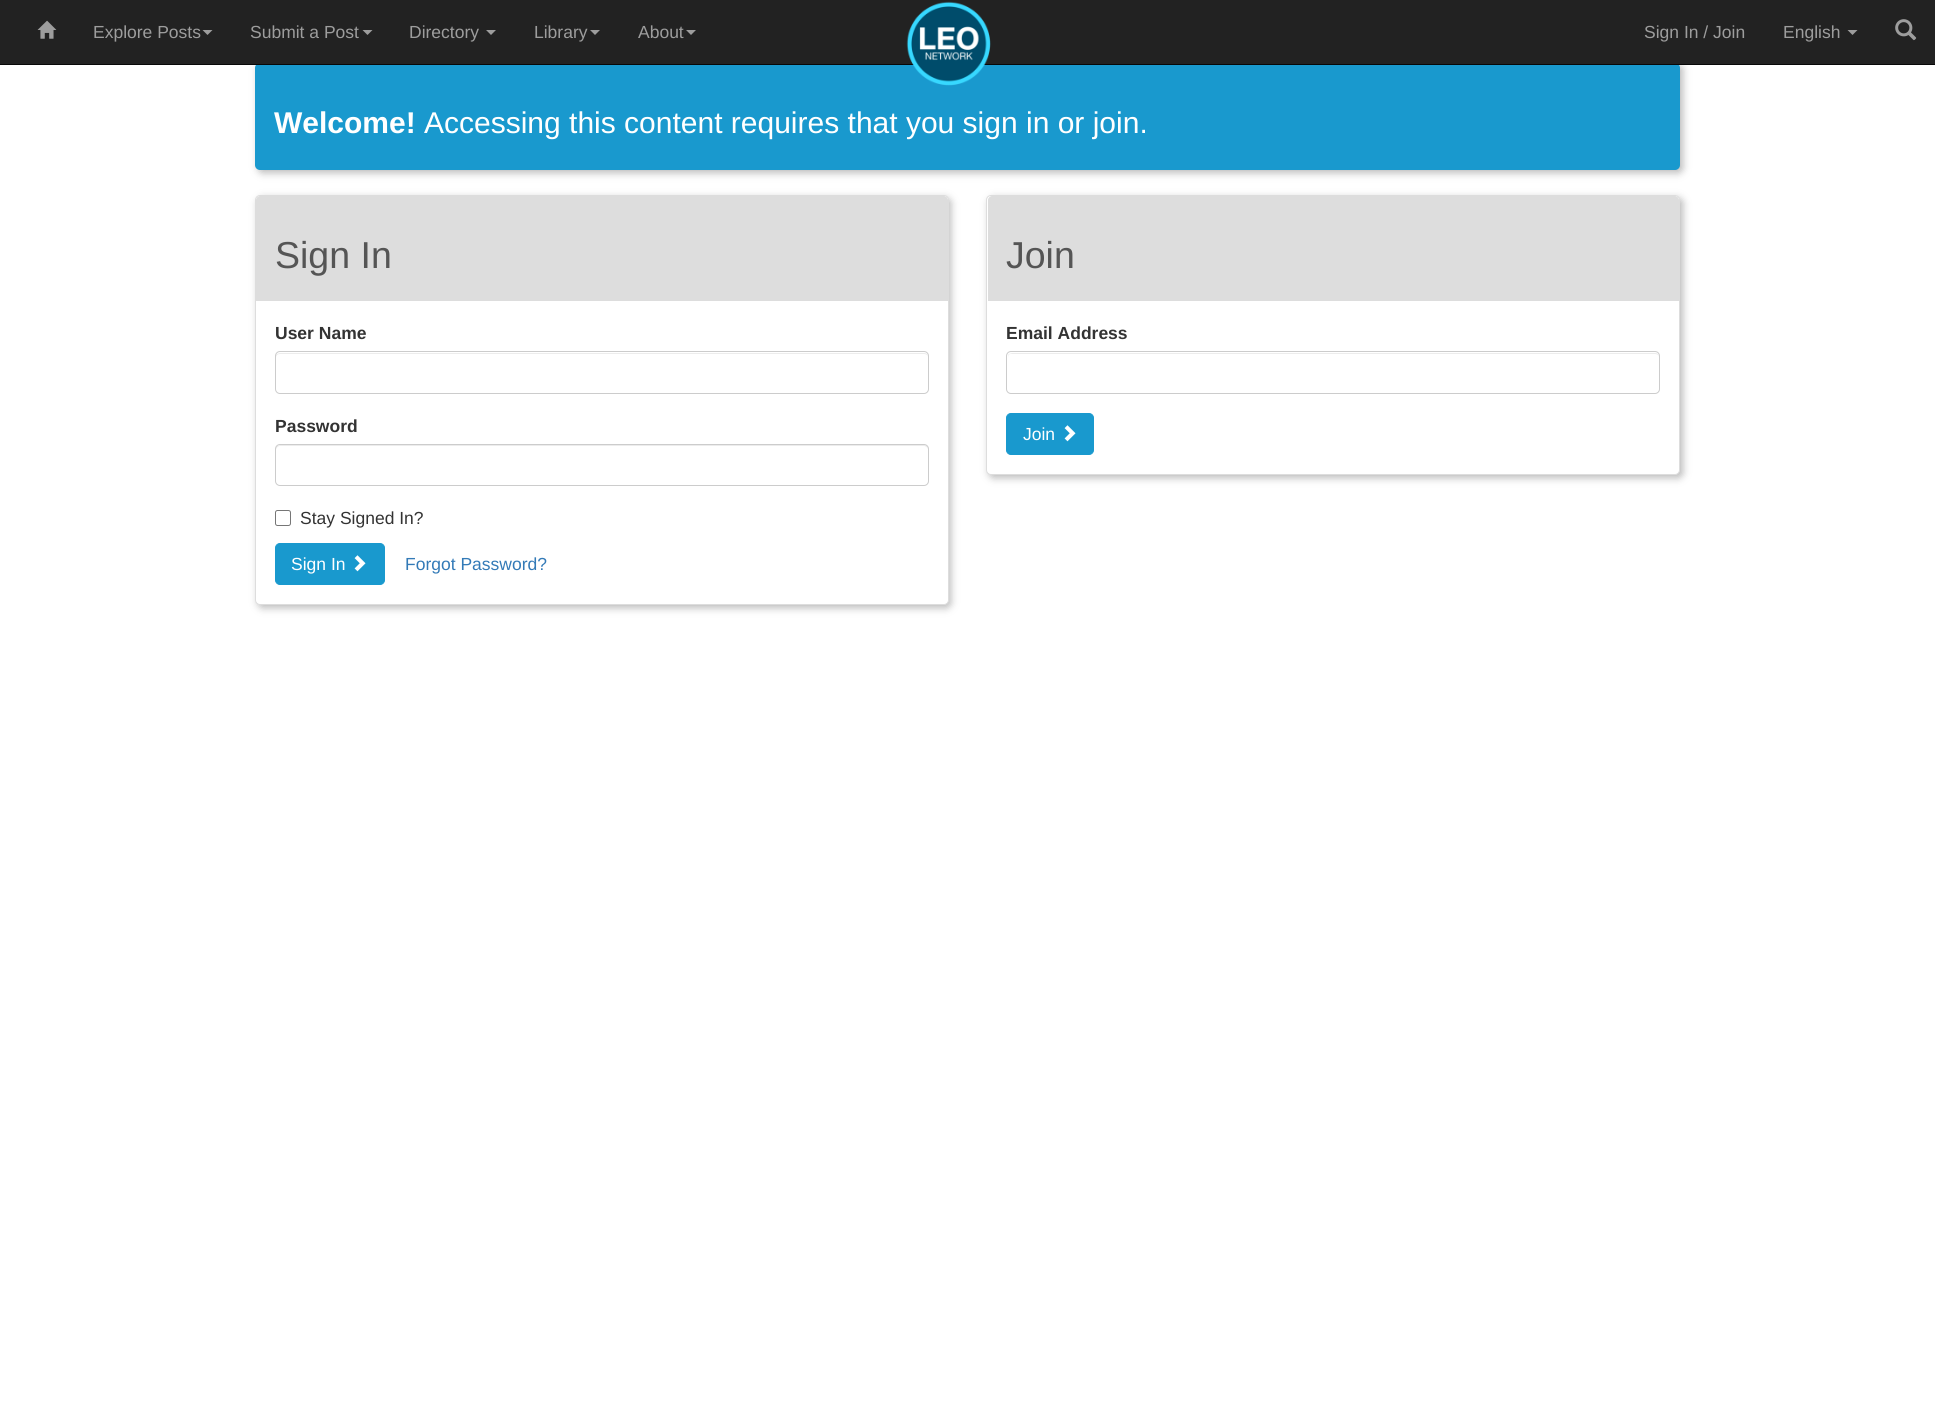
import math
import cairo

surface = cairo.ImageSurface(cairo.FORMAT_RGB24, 1935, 1414)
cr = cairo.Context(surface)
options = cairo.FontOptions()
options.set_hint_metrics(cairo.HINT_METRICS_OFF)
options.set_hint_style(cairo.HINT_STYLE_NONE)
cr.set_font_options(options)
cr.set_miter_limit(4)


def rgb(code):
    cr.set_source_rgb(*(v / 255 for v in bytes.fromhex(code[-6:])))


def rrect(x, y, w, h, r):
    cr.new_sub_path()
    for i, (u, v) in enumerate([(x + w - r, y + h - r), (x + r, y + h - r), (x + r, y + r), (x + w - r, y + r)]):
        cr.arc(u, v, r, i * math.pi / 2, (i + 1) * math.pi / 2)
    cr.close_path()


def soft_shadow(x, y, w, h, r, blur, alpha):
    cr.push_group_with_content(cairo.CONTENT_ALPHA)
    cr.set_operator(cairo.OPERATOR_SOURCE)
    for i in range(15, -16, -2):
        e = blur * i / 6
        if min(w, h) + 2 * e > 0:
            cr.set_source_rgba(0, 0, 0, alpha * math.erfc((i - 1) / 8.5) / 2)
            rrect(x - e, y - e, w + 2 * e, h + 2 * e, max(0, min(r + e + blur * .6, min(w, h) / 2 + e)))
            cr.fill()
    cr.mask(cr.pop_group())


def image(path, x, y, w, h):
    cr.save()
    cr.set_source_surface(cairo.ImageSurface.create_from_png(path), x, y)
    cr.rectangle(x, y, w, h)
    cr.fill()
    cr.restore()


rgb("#ffffff")
cr.paint()
rgb("#bbbbbb")
soft_shadow(258, 65, 1425, 108, 5, 4, 1)
rgb("#1999ce")
rrect(255, 63, 1425, 107, 5)
cr.fill()
rgb("#222222")
cr.rectangle(0, 0, 1935, 64)
cr.fill()
rgb("#080808")
cr.rectangle(0, 64, 1935, 1)
cr.fill()
image("img/1.png", 906, 1, 85, 85)
image("img/2.png", 37, 20, 20, 19)
rgb("#9d9d9d")
cr.new_path()
cr.move_to(202.5, 30)
cr.line_to(212.5, 30)
cr.line_to(207.5, 35)
cr.close_path()
cr.fill()
cr.new_path()
cr.move_to(362.5, 30)
cr.line_to(372.5, 30)
cr.line_to(367.5, 35)
cr.close_path()
cr.fill()
cr.new_path()
cr.move_to(486, 30)
cr.line_to(496, 30)
cr.line_to(491, 35)
cr.close_path()
cr.fill()
cr.new_path()
cr.move_to(590, 30)
cr.line_to(600, 30)
cr.line_to(595, 35)
cr.close_path()
cr.fill()
cr.new_path()
cr.move_to(686, 30)
cr.line_to(696, 30)
cr.line_to(691, 35)
cr.close_path()
cr.fill()
cr.new_path()
cr.move_to(1847.5, 30)
cr.line_to(1857.5, 30)
cr.line_to(1852.5, 35)
cr.close_path()
cr.fill()
image("img/3.png", 1895, 19, 22, 22)
rgb("#bbbbbb")
soft_shadow(258, 198, 693, 410, 5, 4, 1)
rgb("#ffffff")
rrect(255.5, 195.5, 693, 409, 4.5)
cr.fill_preserve()
rgb("#dddddd")
cr.set_line_width(1)
cr.stroke()
cr.new_path()
cr.move_to(260, 196)
cr.line_to(944, 196)
cr.curve_to(946, 196, 948, 198, 948, 200)
cr.line_to(948, 301)
cr.line_to(256, 301)
cr.line_to(256, 200)
cr.curve_to(256, 198, 258, 196, 260, 196)
cr.close_path()
cr.fill()
rgb("#ececec")
cr.new_path()
cr.move_to(280, 354)
cr.line_to(924, 354)
cr.curve_to(926, 354, 928, 355, 928, 358)
cr.curve_to(928, 355, 927, 353, 924, 353)
cr.line_to(280, 353)
cr.line_to(277, 354)
cr.line_to(276, 355)
cr.line_to(276, 358)
cr.curve_to(276, 355, 278, 354, 280, 354)
cr.close_path()
cr.fill()
rrect(275.5, 351.5, 653, 42, 4.5)
rgb("#cccccc")
cr.stroke()
rgb("#ececec")
cr.new_path()
cr.move_to(280, 446)
cr.line_to(924, 446)
cr.curve_to(926, 446, 928, 448, 928, 450)
cr.curve_to(928, 447, 927, 445, 924, 445)
cr.line_to(280, 445)
cr.line_to(277, 446)
cr.line_to(276, 447)
cr.line_to(276, 450)
cr.curve_to(276, 448, 278, 446, 280, 446)
cr.close_path()
cr.fill()
rrect(275.5, 444.5, 653, 41, 4.5)
rgb("#cccccc")
cr.stroke()
rrect(275.5, 510.5, 15, 15, 2)
rgb("#767676")
cr.stroke()
rgb("#1999ce")
rrect(275.5, 543.5, 109, 41, 4.5)
cr.fill_preserve()
cr.stroke()
image("img/4.png", 354, 555, 12, 17)
rgb("#bbbbbb")
soft_shadow(989, 198, 694, 280, 5, 4, 1)
rgb("#ffffff")
rrect(986.5, 195.5, 693, 279, 4.5)
cr.fill_preserve()
rgb("#dddddd")
cr.stroke()
cr.new_path()
cr.move_to(992, 196)
cr.line_to(1675, 196)
cr.curve_to(1677, 196, 1679, 198, 1679, 200)
cr.line_to(1679, 301)
cr.line_to(988, 301)
cr.line_to(988, 200)
cr.curve_to(988, 198, 990, 196, 992, 196)
cr.close_path()
cr.fill()
rgb("#ececec")
cr.new_path()
cr.move_to(1011, 354)
cr.line_to(1655, 354)
cr.curve_to(1657, 354, 1659, 355, 1659, 358)
cr.curve_to(1659, 355, 1658, 353, 1655, 353)
cr.line_to(1012, 353)
cr.line_to(1009, 354)
cr.line_to(1008, 355)
cr.line_to(1008, 358)
cr.curve_to(1008, 355, 1009, 354, 1011, 354)
cr.close_path()
cr.fill()
rrect(1006.5, 351.5, 653, 42, 4.5)
rgb("#cccccc")
cr.stroke()
rgb("#1999ce")
rrect(1006.5, 413.5, 87, 41, 4.5)
cr.fill_preserve()
cr.stroke()
image("img/4.png", 1064, 425, 12, 17)
cr.select_font_face("Liberation Sans")
cr.set_font_size(17.5)
rgb("#9d9d9d")
for x, y, s in [
    (93, 38, "Explore Posts"),
    (250, 38, "Submit a Post"),
    (409, 38, "Directory"),
    (534, 38, "Library"),
    (638, 38, "About"),
    (1644, 38, "Sign In / Join"),
    (1783, 38, "English"),
]:
    cr.move_to(x, y)
    cr.show_text(s)
cr.select_font_face("Liberation Sans", cairo.FONT_SLANT_NORMAL, cairo.FONT_WEIGHT_BOLD)
cr.set_font_size(30)
rgb("#ffffff")
cr.move_to(274, 133)
cr.show_text("Welcome!")
cr.select_font_face("Liberation Sans")
cr.move_to(424, 133)
cr.show_text("Accessing this content requires that you sign in or join.")
cr.set_font_size(37.5)
rgb("#555555")
cr.move_to(275, 268)
cr.show_text("Sign In")
cr.select_font_face("Liberation Sans", cairo.FONT_SLANT_NORMAL, cairo.FONT_WEIGHT_BOLD)
cr.set_font_size(17.5)
rgb("#333333")
cr.move_to(275, 339)
cr.show_text("User Name")
cr.move_to(275, 432)
cr.show_text("Password")
cr.select_font_face("Liberation Sans")
cr.move_to(300, 524)
cr.show_text("Stay Signed In?")
rgb("#ffffff")
cr.move_to(291, 570)
cr.show_text("Sign In")
rgb("#337ab7")
cr.move_to(405, 570)
cr.show_text("Forgot Password?")
cr.set_font_size(37.5)
rgb("#555555")
cr.move_to(1006, 268)
cr.show_text("Join")
cr.select_font_face("Liberation Sans", cairo.FONT_SLANT_NORMAL, cairo.FONT_WEIGHT_BOLD)
cr.set_font_size(17.5)
rgb("#333333")
cr.move_to(1006, 339)
cr.show_text("Email Address")
cr.select_font_face("Liberation Sans")
rgb("#ffffff")
cr.move_to(1023, 440)
cr.show_text("Join")
surface.write_to_png("page.png")
